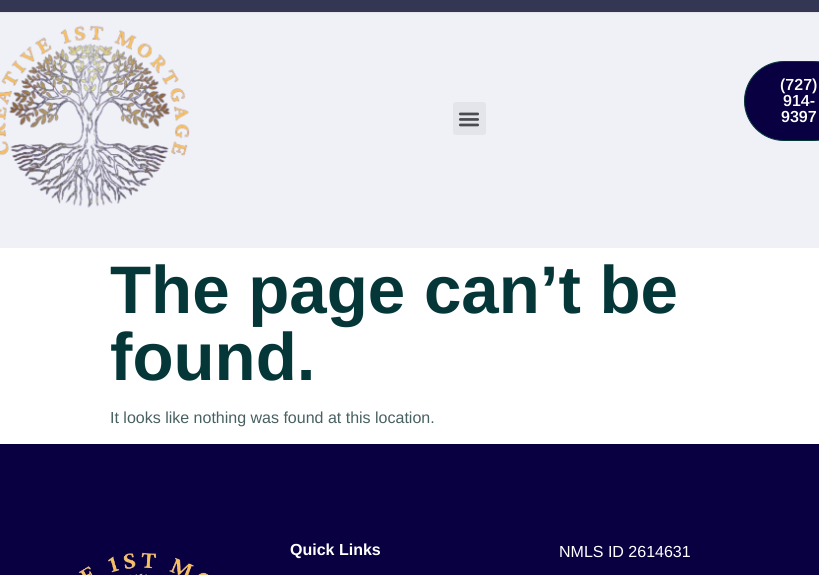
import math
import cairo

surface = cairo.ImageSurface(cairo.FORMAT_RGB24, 819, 575)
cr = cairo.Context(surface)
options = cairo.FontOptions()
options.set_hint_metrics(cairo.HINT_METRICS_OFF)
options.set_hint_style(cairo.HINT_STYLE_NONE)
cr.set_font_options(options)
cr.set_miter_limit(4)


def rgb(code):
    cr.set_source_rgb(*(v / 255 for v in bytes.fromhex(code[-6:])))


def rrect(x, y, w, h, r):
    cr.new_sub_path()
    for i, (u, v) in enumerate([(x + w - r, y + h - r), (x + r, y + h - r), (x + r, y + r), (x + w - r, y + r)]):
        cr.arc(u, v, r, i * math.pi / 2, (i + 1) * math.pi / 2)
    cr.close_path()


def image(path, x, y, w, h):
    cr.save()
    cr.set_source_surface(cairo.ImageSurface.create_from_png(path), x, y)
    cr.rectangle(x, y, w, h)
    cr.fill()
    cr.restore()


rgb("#ffffff")
cr.paint()
image("img/1.png", 0, 0, 819, 248)
image("img/2.png", 0, 25, 190, 183)
rgb("#e4e4eb")
rrect(453, 102, 33, 33, 3)
cr.fill()
image("img/3.png", 458, 112, 21, 15)
rgb("#080040")
rrect(744.5, 61.5, 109, 79, 39.5)
cr.fill_preserve()
rgb("#053739")
cr.set_line_width(1)
cr.stroke()
rgb("#080040")
cr.rectangle(0, 444, 819, 131)
cr.fill()
image("img/4.png", 78, 552, 131, 23)
cr.select_font_face("Arimo SemiBold")
cr.set_font_size(16)
rgb("#ffffff")
for x, y, s in [
    (780, 90, "(727)"),
    (783, 106, "914-"),
    (781, 122, "9397"),
]:
    cr.move_to(x, y)
    cr.show_text(s)
cr.select_font_face("Arimo", cairo.FONT_SLANT_NORMAL, cairo.FONT_WEIGHT_BOLD)
cr.set_font_size(67.25)
rgb("#053739")
cr.move_to(110, 313)
cr.show_text("The page can’t be")
cr.move_to(110, 380)
cr.show_text("found.")
cr.select_font_face("Arimo")
cr.set_font_size(16)
rgb("#486061")
cr.move_to(110, 423)
cr.show_text("It looks like nothing was found at this location.")
cr.select_font_face("Arimo", cairo.FONT_SLANT_NORMAL, cairo.FONT_WEIGHT_BOLD)
rgb("#ffffff")
cr.move_to(290, 555)
cr.show_text("Quick Links")
cr.select_font_face("Arimo")
cr.move_to(559, 557)
cr.show_text("NMLS ID 2614631")
surface.write_to_png("page.png")
